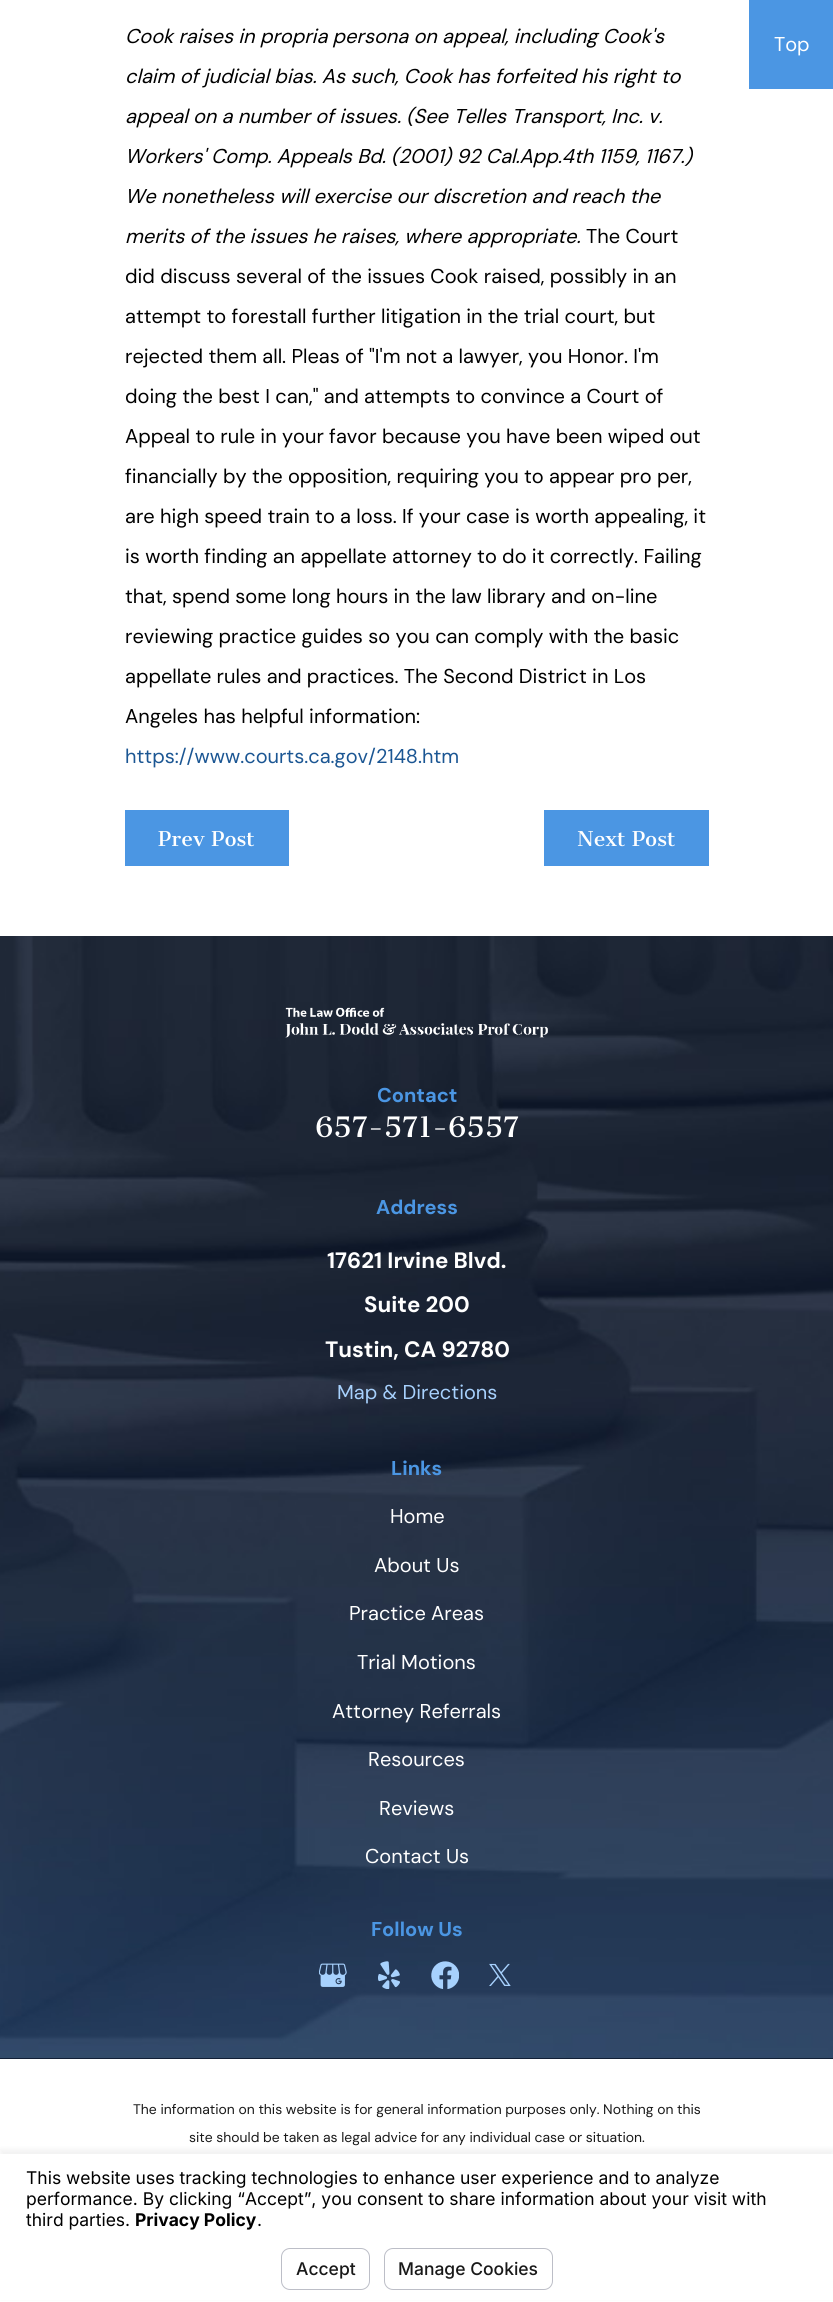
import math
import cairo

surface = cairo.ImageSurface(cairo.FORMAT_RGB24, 833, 2302)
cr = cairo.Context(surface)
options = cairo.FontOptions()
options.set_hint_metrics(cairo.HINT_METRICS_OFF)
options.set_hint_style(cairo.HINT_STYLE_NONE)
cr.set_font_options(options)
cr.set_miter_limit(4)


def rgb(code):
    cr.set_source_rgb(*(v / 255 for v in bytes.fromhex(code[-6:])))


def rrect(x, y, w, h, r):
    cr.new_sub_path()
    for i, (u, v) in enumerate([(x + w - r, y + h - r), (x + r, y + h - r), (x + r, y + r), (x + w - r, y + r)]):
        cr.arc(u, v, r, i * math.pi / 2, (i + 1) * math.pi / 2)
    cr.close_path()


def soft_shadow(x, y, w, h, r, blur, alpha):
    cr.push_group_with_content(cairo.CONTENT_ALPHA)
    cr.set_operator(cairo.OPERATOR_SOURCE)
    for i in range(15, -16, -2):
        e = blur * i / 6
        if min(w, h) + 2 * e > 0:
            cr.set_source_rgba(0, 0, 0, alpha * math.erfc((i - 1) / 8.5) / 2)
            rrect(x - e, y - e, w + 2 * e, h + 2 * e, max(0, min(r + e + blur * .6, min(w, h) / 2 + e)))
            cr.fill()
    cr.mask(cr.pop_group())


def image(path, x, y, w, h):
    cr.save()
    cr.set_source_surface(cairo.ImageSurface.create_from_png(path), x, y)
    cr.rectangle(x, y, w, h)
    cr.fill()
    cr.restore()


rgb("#ffffff")
cr.paint()
for x, y, w, h, color in [
    (125, 810, 164, 56, "#4b96e3"),
    (544, 810, 165, 56, "#4b96e3"),
    (749, 0, 84, 89, "#4b96e3"),
    (0, 2058, 833, 1, "#071224"),
]:
    rgb(color)
    cr.rectangle(x, y, w, h)
    cr.fill()
image("img/1.png", 0, 936, 833, 1123)
image("img/2.png", 285, 1007, 263, 31)
image("img/3.png", 319, 1963, 28, 24)
image("img/4.png", 378, 1961, 22, 28)
image("img/5.png", 431, 1961, 28, 28)
image("img/6.png", 489, 1963, 22, 23)
rgb("#000000")
soft_shadow(0, 2149, 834, 149, 0, 2, 0.05)
rgb("#ffffff")
cr.rectangle(0, 2154, 833, 146)
cr.fill()
rrect(281.5, 2248.5, 88, 41, 8.5)
rgb("#bcbec7")
cr.set_line_width(1)
cr.stroke()
rrect(384.5, 2248.5, 168, 41, 8.5)
cr.stroke()
cr.select_font_face("DM Sans", cairo.FONT_SLANT_ITALIC)
cr.set_font_size(20)
rgb("#000000")
for x, y, s in [
    (125, 43, "Cook raises in propria persona on appeal, including Cook's"),
    (125, 83, "claim of judicial bias. As such, Cook has forfeited his right to"),
    (125, 123, "appeal on a number of issues. (See Telles Transport, Inc. v."),
    (125, 163, "Workers' Comp. Appeals Bd. (2001) 92 Cal.App.4th 1159, 1167.)"),
    (125, 203, "We nonetheless will exercise our discretion and reach the"),
    (125, 243, "merits of the issues he raises, where appropriate."),
]:
    cr.move_to(x, y)
    cr.show_text(s)
cr.select_font_face("DM Sans")
for x, y, s in [
    (586, 243, "The Court"),
    (125, 283, "did discuss several of the issues Cook raised, possibly in an"),
    (125, 323, "attempt to forestall further litigation in the trial court, but"),
    (125, 363, "rejected them all. Pleas of \"I'm not a lawyer, you Honor. I'm"),
    (125, 403, "doing the best I can,\" and attempts to convince a Court of"),
    (125, 443, "Appeal to rule in your favor because you have been wiped out"),
    (125, 483, "financially by the opposition, requiring you to appear pro per,"),
    (125, 523, "are high speed train to a loss. If your case is worth appealing, it"),
    (125, 563, "is worth finding an appellate attorney to do it correctly. Failing"),
    (125, 603, "that, spend some long hours in the law library and on-line"),
    (125, 643, "reviewing practice guides so you can comply with the basic"),
    (125, 683, "appellate rules and practices. The Second District in Los"),
    (125, 723, "Angeles has helpful information:"),
]:
    cr.move_to(x, y)
    cr.show_text(s)
rgb("#1b5693")
cr.move_to(125, 763)
cr.show_text("https://www.courts.ca.gov/2148.htm")
cr.select_font_face("Cantata One")
rgb("#ffffff")
cr.move_to(158, 846)
cr.show_text("Prev Post")
cr.move_to(577, 846)
cr.show_text("Next Post")
cr.select_font_face("DM Sans")
cr.move_to(774, 51)
cr.show_text("Top")
cr.select_font_face("DM Sans", cairo.FONT_SLANT_NORMAL, cairo.FONT_WEIGHT_BOLD)
rgb("#4b96e3")
cr.move_to(377, 1102)
cr.show_text("Contact")
cr.select_font_face("Cantata One")
cr.set_font_size(27.5)
rgb("#ffffff")
cr.move_to(315, 1137)
cr.show_text("657-571-6557")
cr.select_font_face("DM Sans", cairo.FONT_SLANT_NORMAL, cairo.FONT_WEIGHT_BOLD)
cr.set_font_size(20)
rgb("#4b96e3")
cr.move_to(376, 1214)
cr.show_text("Address")
cr.set_font_size(22.25)
rgb("#ffffff")
for x, y, s in [
    (327, 1268, "17621 Irvine Blvd."),
    (364, 1312, "Suite 200"),
    (325, 1357, "Tustin, CA 92780"),
]:
    cr.move_to(x, y)
    cr.show_text(s)
cr.select_font_face("DM Sans")
cr.set_font_size(20)
rgb("#a7d1fd")
cr.move_to(337, 1399)
cr.show_text("Map & Directions")
cr.select_font_face("DM Sans", cairo.FONT_SLANT_NORMAL, cairo.FONT_WEIGHT_BOLD)
rgb("#4b96e3")
cr.move_to(391, 1475)
cr.show_text("Links")
cr.select_font_face("DM Sans")
rgb("#ffffff")
for x, y, s in [
    (390, 1523, "Home"),
    (374, 1572, "About Us"),
    (349, 1620, "Practice Areas"),
    (357, 1669, "Trial Motions"),
    (332, 1718, "Attorney Referrals"),
    (368, 1766, "Resources"),
    (379, 1815, "Reviews"),
    (365, 1863, "Contact Us"),
]:
    cr.move_to(x, y)
    cr.show_text(s)
cr.select_font_face("DM Sans", cairo.FONT_SLANT_NORMAL, cairo.FONT_WEIGHT_BOLD)
rgb("#4b96e3")
cr.move_to(371, 1936)
cr.show_text("Follow Us")
cr.select_font_face("DM Sans")
cr.set_font_size(13.9)
rgb("#191919")
cr.move_to(133, 2114)
cr.show_text("The information on this website is for general information purposes only. Nothing on this")
cr.move_to(189, 2142)
cr.show_text("site should be taken as legal advice for any individual case or situation.")
cr.select_font_face("Inter")
cr.set_font_size(17.5)
rgb("#000000")
for x, y, s in [
    (26, 2184, "This website uses tracking technologies to enhance user experience and to analyze"),
    (26, 2205, "performance. By clicking “Accept”, you consent to share information about your visit with"),
    (26, 2226, "third parties."),
]:
    cr.move_to(x, y)
    cr.show_text(s)
cr.select_font_face("Inter", cairo.FONT_SLANT_NORMAL, cairo.FONT_WEIGHT_BOLD)
cr.move_to(135, 2226)
cr.show_text("Privacy Policy")
cr.select_font_face("Inter")
cr.move_to(257, 2226)
cr.show_text(".")
cr.select_font_face("Inter Medium")
rgb("#191919")
cr.move_to(296, 2275)
cr.show_text("Accept")
cr.move_to(398, 2275)
cr.show_text("Manage Cookies")
surface.write_to_png("page.png")
